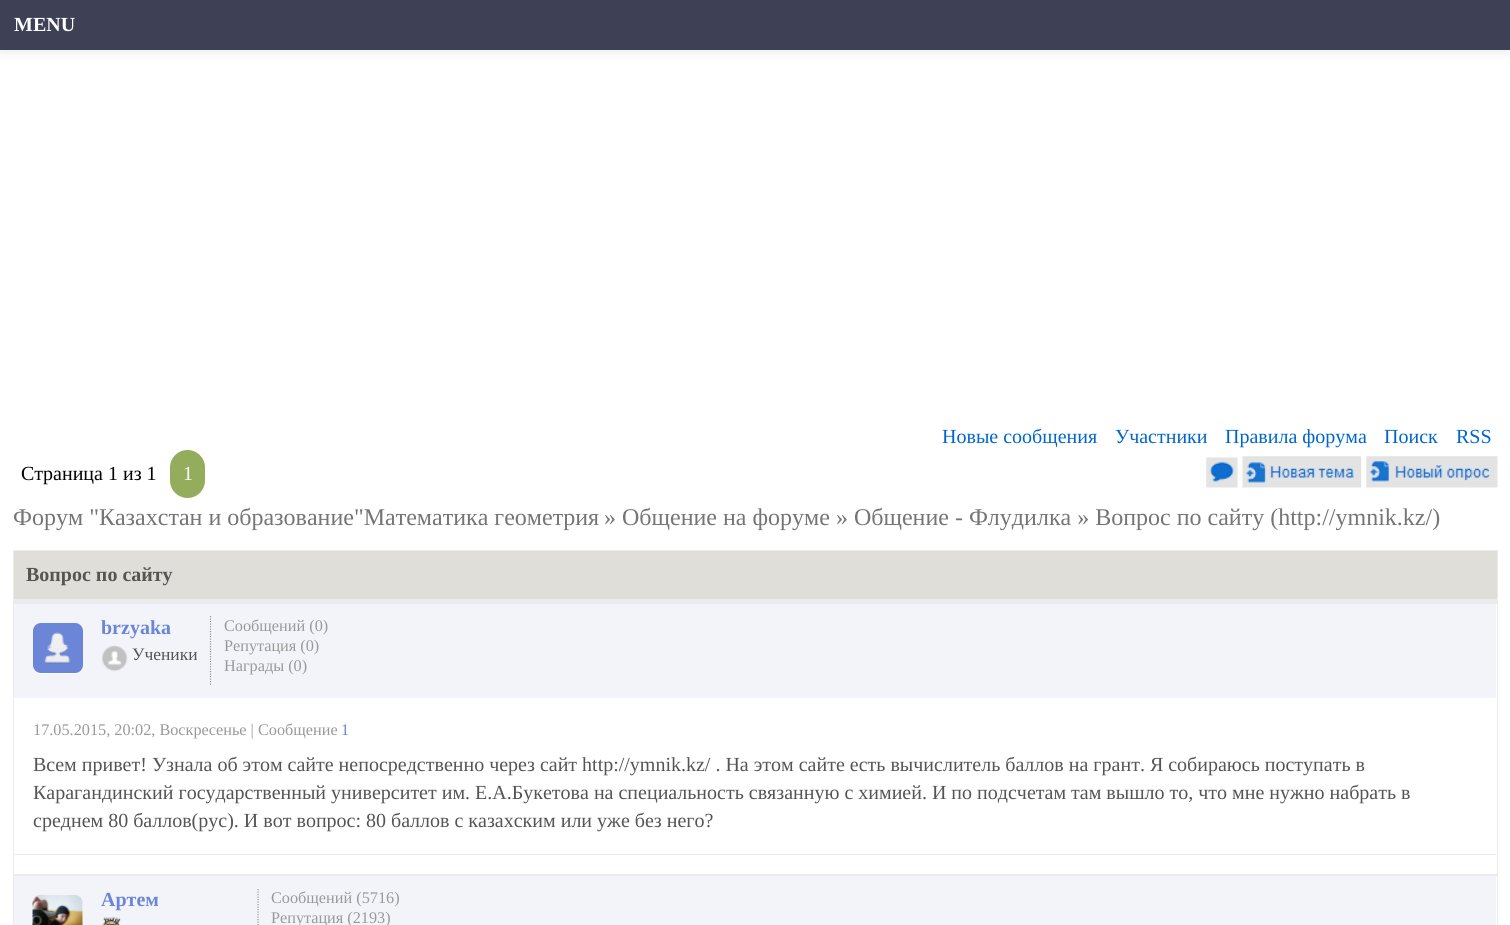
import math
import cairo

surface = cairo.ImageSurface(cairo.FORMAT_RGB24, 1510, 925)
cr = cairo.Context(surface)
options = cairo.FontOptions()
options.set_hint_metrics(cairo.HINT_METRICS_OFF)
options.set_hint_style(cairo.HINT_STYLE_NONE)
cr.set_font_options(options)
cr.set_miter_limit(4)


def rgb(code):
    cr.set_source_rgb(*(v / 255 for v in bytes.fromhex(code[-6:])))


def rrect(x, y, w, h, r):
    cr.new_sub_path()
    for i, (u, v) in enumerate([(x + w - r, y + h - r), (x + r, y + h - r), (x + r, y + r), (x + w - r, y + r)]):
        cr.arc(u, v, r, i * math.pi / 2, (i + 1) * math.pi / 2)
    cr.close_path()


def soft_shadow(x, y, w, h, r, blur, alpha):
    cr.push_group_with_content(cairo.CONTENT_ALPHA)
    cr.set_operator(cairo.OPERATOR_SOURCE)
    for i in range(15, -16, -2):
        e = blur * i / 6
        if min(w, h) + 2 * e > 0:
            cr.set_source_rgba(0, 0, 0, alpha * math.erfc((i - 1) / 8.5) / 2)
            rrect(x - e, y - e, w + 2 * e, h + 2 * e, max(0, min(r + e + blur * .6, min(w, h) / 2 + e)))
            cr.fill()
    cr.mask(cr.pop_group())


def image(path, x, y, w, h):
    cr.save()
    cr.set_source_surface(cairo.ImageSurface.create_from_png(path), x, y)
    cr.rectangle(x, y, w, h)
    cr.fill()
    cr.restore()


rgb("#ffffff")
cr.paint()
rgb("#000000")
soft_shadow(0, 1, 1510, 50, 0, 6, 0.1)
rgb("#3e4156")
cr.rectangle(0, 0, 1510, 50)
cr.fill()
rgb("#94ad5d")
rrect(170, 450, 35, 48, 17.5)
cr.fill()
image("img/1.png", 1206, 457, 32, 31)
image("img/2.png", 1242, 456, 120, 32)
image("img/3.png", 1366, 456, 132, 32)
rgb("#e0ded8")
cr.rectangle(13.5, 550.5, 1484, 49)
cr.fill_preserve()
rgb("#ebebeb")
cr.set_line_width(1)
cr.stroke()
cr.rectangle(13, 600, 1485, 3)
cr.fill()
cr.rectangle(13.5, 603.5, 1484, 271)
cr.stroke()
rgb("#f3f4fa")
cr.rectangle(14, 604, 1482, 94)
cr.fill()
rgb("#fcfcfc")
cr.new_path()
cr.move_to(33, 669)
cr.curve_to(35, 672, 38, 674, 41, 674)
cr.line_to(75, 674)
cr.curve_to(79, 674, 83, 670, 83, 666)
cr.line_to(83, 632)
cr.line_to(82, 629)
cr.line_to(82, 667)
cr.curve_to(81, 673, 74, 672, 69, 672)
cr.line_to(52, 672)
cr.curve_to(46, 672, 37, 675, 33, 669)
cr.close_path()
cr.fill()
rgb("#6b85d7")
rrect(33, 623, 50, 50, 8)
cr.fill()
image("img/4.png", 44, 632, 27, 32)
cr.new_path()
cr.move_to(210.5, 616)
cr.line_to(210.5, 685)
rgb("#999999")
cr.set_line_width(1.2)
cr.set_dash([1.25, 1.25])
cr.stroke()
image("img/5.png", 101, 645, 27, 27)
rgb("#ebebeb")
cr.rectangle(14, 854, 1482, 1)
cr.fill()
cr.rectangle(13.5, 875.5, 1484, 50)
cr.set_line_width(1)
cr.set_dash([])
cr.stroke()
rgb("#f3f4fa")
cr.rectangle(14, 876, 1482, 49)
cr.fill()
rgb("#fcfcfc")
cr.new_path()
cr.move_to(34, 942)
cr.curve_to(36, 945, 38, 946, 41, 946)
cr.line_to(75, 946)
cr.curve_to(79, 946, 83, 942, 83, 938)
cr.line_to(83, 904)
cr.line_to(82, 901)
cr.line_to(82, 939)
cr.curve_to(81, 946, 74, 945, 69, 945)
cr.line_to(46, 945)
cr.curve_to(42, 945, 37, 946, 34, 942)
cr.close_path()
cr.fill()
image("img/6.png", 32, 895, 51, 30)
cr.new_path()
cr.move_to(258, 889)
cr.line_to(258, 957.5)
rgb("#999999")
cr.set_line_width(1.2)
cr.set_dash([1.25, 1.25])
cr.stroke()
image("img/7.png", 102, 917, 19, 8)
cr.select_font_face("Liberation Serif", cairo.FONT_SLANT_NORMAL, cairo.FONT_WEIGHT_BOLD)
cr.set_font_size(20)
rgb("#ffffff")
cr.move_to(14, 31)
cr.show_text("MENU")
cr.select_font_face("Liberation Serif")
rgb("#0066cc")
for x, y, s in [
    (942, 443, "Новые сообщения"),
    (1115, 443, "Участники"),
    (1225, 443, "Правила форума"),
    (1384, 443, "Поиск"),
    (1456, 443, "RSS"),
]:
    cr.move_to(x, y)
    cr.show_text(s)
rgb("#000000")
cr.move_to(21, 480)
cr.show_text("Страница 1 из 1")
rgb("#ffffff")
cr.move_to(183, 480)
cr.show_text("1")
cr.set_font_size(24)
rgb("#757575")
cr.move_to(13, 525)
cr.show_text("Форум \"Казахстан и образование\"Математика геометрия")
cr.move_to(604, 525)
cr.show_text("» Общение на форуме » Общение - Флудилка » Вопрос по сайту (http://ymnik.kz/)")
cr.select_font_face("Liberation Serif", cairo.FONT_SLANT_NORMAL, cairo.FONT_WEIGHT_BOLD)
cr.set_font_size(20)
rgb("#555555")
cr.move_to(26, 581)
cr.show_text("Вопрос по сайту")
rgb("#6b85d7")
cr.move_to(101, 634)
cr.show_text("brzyaka")
cr.select_font_face("Liberation Serif")
cr.set_font_size(17.5)
rgb("#555555")
cr.move_to(132, 660)
cr.show_text("Ученики")
cr.set_font_size(16.25)
rgb("#999999")
for x, y, s in [
    (224, 631, "Сообщений (0)"),
    (224, 651, "Репутация (0)"),
    (224, 671, "Награды (0)"),
    (33, 735, "17.05.2015, 20:02, Воскресенье | Сообщение"),
]:
    cr.move_to(x, y)
    cr.show_text(s)
rgb("#6b85d7")
cr.move_to(341, 735)
cr.show_text("1")
cr.set_font_size(20)
rgb("#555555")
for x, y, s in [
    (33, 771, "Всем привет! Узнала об этом сайте непосредственно через сайт http://ymnik.kz/ . На этом сайте есть вычислитель баллов на грант. Я собираюсь поступать в"),
    (33, 799, "Карагандинский государственный университет им. Е.А.Букетова на специальность связанную с химией. И по подсчетам там вышло то, что мне нужно набрать в"),
    (33, 827, "среднем 80 баллов(рус). И вот вопрос: 80 баллов с казахским или уже без него?"),
]:
    cr.move_to(x, y)
    cr.show_text(s)
cr.select_font_face("Liberation Serif", cairo.FONT_SLANT_NORMAL, cairo.FONT_WEIGHT_BOLD)
rgb("#6b85d7")
cr.move_to(101, 906)
cr.show_text("Артем")
cr.select_font_face("Liberation Serif")
cr.set_font_size(16.25)
rgb("#999999")
cr.move_to(271, 903)
cr.show_text("Сообщений (5716)")
cr.move_to(271, 923)
cr.show_text("Репутация (2193)")
surface.write_to_png("page.png")
